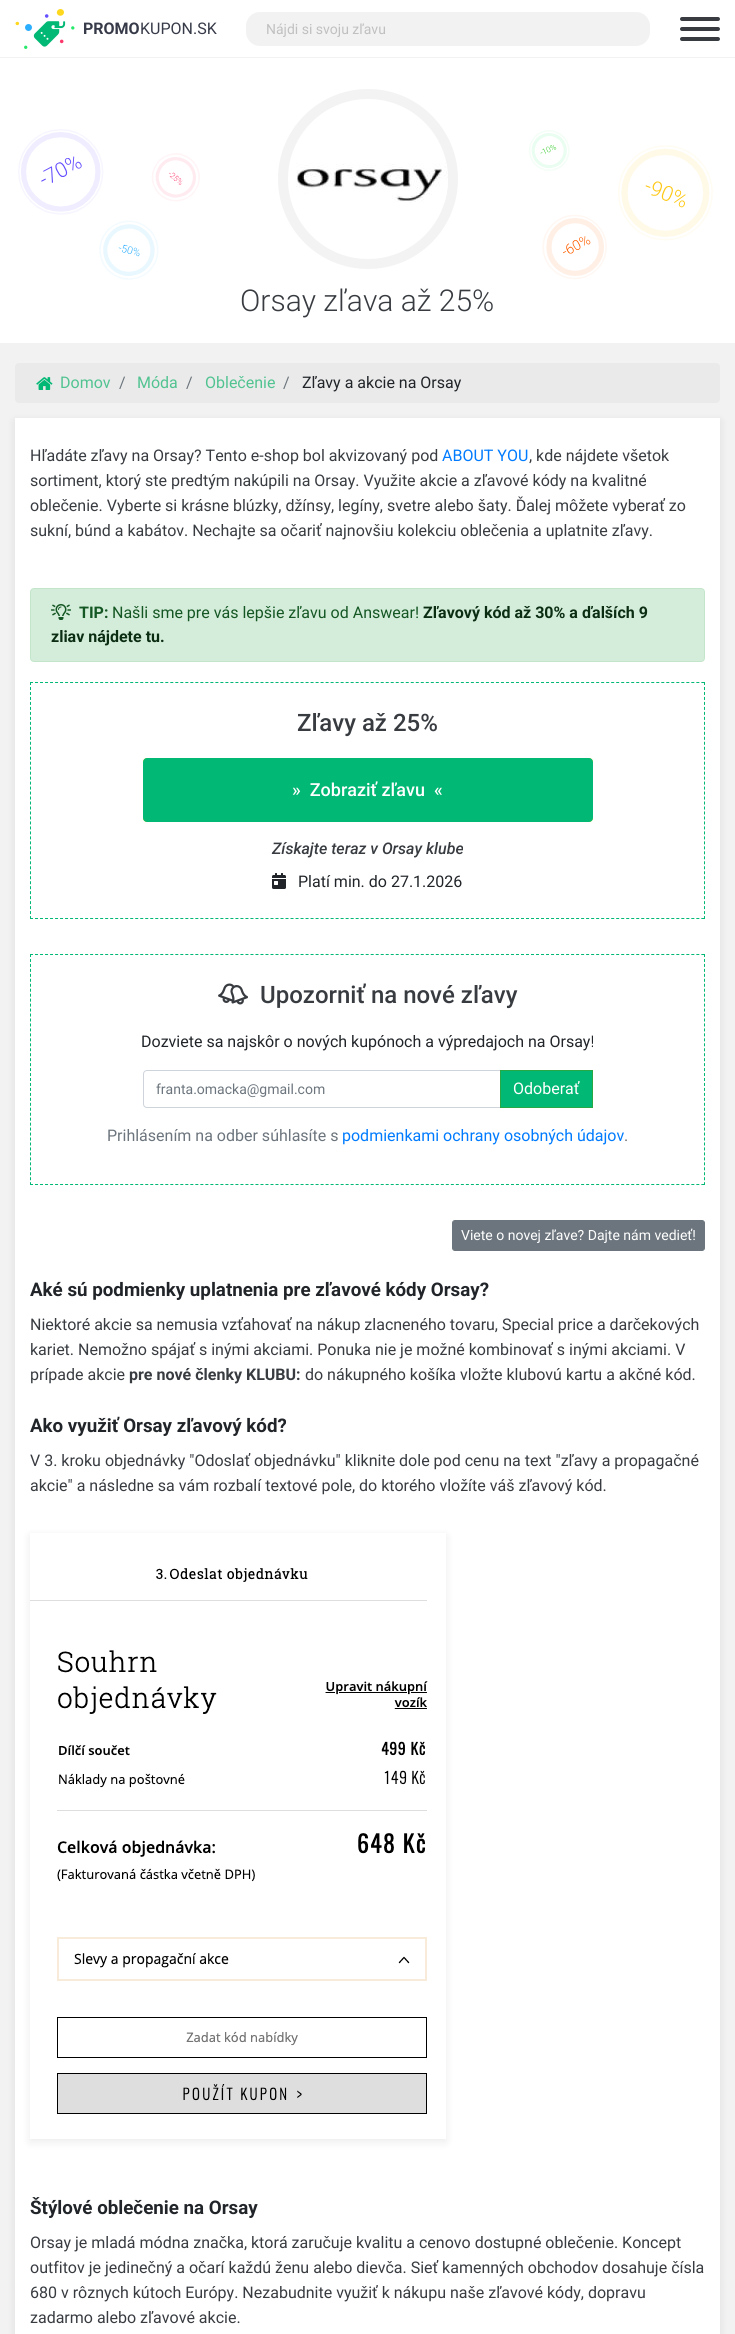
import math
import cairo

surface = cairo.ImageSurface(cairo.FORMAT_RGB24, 735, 2334)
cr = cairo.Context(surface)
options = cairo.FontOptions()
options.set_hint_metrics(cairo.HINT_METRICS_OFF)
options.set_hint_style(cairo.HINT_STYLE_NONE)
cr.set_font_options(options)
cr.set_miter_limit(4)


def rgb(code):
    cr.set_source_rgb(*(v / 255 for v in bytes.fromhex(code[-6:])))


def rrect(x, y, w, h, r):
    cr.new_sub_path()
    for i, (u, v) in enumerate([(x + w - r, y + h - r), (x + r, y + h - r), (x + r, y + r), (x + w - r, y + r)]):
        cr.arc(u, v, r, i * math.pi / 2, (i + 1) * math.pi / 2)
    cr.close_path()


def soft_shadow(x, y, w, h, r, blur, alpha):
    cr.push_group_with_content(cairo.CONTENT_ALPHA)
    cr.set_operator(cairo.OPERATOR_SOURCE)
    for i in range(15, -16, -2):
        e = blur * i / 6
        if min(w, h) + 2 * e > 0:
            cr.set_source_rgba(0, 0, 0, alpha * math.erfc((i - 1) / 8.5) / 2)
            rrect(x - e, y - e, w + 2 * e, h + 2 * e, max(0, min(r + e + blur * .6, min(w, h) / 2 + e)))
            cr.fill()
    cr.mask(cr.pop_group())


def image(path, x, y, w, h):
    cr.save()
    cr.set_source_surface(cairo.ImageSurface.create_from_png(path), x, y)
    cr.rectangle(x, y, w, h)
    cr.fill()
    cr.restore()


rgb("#ffffff")
cr.paint()
rgb("#f2f2f2")
cr.rectangle(0, 57, 735, 1)
cr.fill()
image("img/1.png", 15, 9, 60, 40)
rrect(246, 12, 404, 34, 14)
cr.fill()
rgb("#383c41")
rrect(680, 17, 40, 4, 2)
cr.fill()
rrect(680, 27, 40, 4, 2)
cr.fill()
rrect(680, 37, 40, 4, 2)
cr.fill()
image("img/2.png", 18, 129, 695, 151)
cr.arc(368, 179, 85, 0, 2 * math.pi)
rgb("#f3f3f3")
cr.set_line_width(10)
cr.stroke()
image("img/3.png", 296, 163, 152, 40)
rgb("#f2f2f2")
cr.rectangle(0, 343, 735, 1991)
cr.fill()
rgb("#eaeaea")
rrect(15, 363, 705, 40, 4)
cr.fill()
image("img/4.png", 36, 377, 17, 13)
rgb("#000000")
soft_shadow(15, 421, 705, 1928, 0, 5, 0.08)
rgb("#ffffff")
cr.rectangle(15, 418, 705, 1916)
cr.fill()
rgb("#d4edda")
rrect(30.5, 588.5, 674, 73, 3.5)
cr.fill_preserve()
rgb("#c3e6cb")
cr.set_line_width(1)
cr.stroke()
image("img/5.png", 51, 604, 20, 16)
cr.new_path()
cr.move_to(30, 682.5)
cr.line_to(705, 682.5)
rgb("#02b875")
cr.set_dash([3, 2.01])
cr.stroke()
cr.new_path()
cr.move_to(704.5, 682)
cr.line_to(704.5, 919)
cr.set_dash([3, 1.98])
cr.stroke()
cr.new_path()
cr.move_to(30, 918.5)
cr.line_to(705, 918.5)
cr.set_dash([3, 2.01])
cr.stroke()
cr.new_path()
cr.move_to(30.5, 682)
cr.line_to(30.5, 919)
cr.set_dash([3, 1.98])
cr.stroke()
rrect(144, 759, 448, 62, 3)
rgb("#ffd900")
cr.set_line_width(2)
cr.set_dash([])
cr.stroke()
rgb("#02b875")
rrect(144, 759, 448, 62, 3)
cr.fill_preserve()
cr.stroke()
image("img/6.png", 272, 873, 14, 16)
cr.new_path()
cr.move_to(30, 954.5)
cr.line_to(705, 954.5)
cr.set_line_width(1)
cr.set_dash([3, 2.01])
cr.stroke()
cr.new_path()
cr.move_to(704.5, 954)
cr.line_to(704.5, 1185)
cr.set_dash([3, 1.96])
cr.stroke()
cr.new_path()
cr.move_to(30, 1184.5)
cr.line_to(705, 1184.5)
cr.set_dash([3, 2.01])
cr.stroke()
cr.new_path()
cr.move_to(30.5, 954)
cr.line_to(30.5, 1185)
cr.set_dash([3, 1.96])
cr.stroke()
image("img/7.png", 218, 983, 30, 22)
cr.new_path()
cr.move_to(147, 1070.5)
cr.line_to(500.5, 1070.5)
cr.line_to(500.5, 1107.5)
cr.line_to(147, 1107.5)
cr.curve_to(145, 1107.5, 143.5, 1106, 143.5, 1104)
cr.line_to(143.5, 1074)
cr.curve_to(143.5, 1072, 145, 1070.5, 147, 1070.5)
cr.close_path()
rgb("#ced4da")
cr.set_dash([])
cr.stroke()
rgb("#02b875")
cr.rectangle(500.5, 1070.5, 92, 37)
cr.fill_preserve()
rgb("#28a745")
cr.stroke()
rgb("#6c757d")
rrect(452.5, 1220.5, 252, 30, 2.5)
cr.fill_preserve()
cr.stroke()
cr.save()
cr.set_fill_rule(cairo.FILL_RULE_EVEN_ODD)
cr.new_path()
cr.move_to(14, 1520)
cr.line_to(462, 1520)
cr.line_to(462, 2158)
cr.line_to(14, 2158)
cr.close_path()
cr.move_to(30, 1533)
cr.line_to(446, 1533)
cr.line_to(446, 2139)
cr.line_to(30, 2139)
cr.close_path()
cr.clip()
rgb("#000000")
soft_shadow(30, 1536, 416, 606, 0, 5, 0.08)
cr.restore()
image("img/8.png", 30, 1568, 398, 546)
cr.select_font_face("Roboto", cairo.FONT_SLANT_NORMAL, cairo.FONT_WEIGHT_BOLD)
cr.set_font_size(16)
rgb("#373a48")
cr.move_to(83, 34)
cr.show_text("PROMO")
cr.select_font_face("Roboto")
cr.move_to(140, 34)
cr.show_text("KUPON.SK")
cr.set_font_size(14)
rgb("#c0c0c0")
cr.move_to(266, 34)
cr.show_text("Nájdi si svoju zľavu")
cr.select_font_face("Roboto Light")
cr.set_font_size(30)
rgb("#383c41")
cr.move_to(240, 311)
cr.show_text("Orsay zľava až 25%")
cr.select_font_face("Roboto")
cr.set_font_size(16)
rgb("#51c391")
cr.move_to(60, 388)
cr.show_text("Domov")
rgb("#6c757d")
cr.move_to(119, 388)
cr.show_text("/")
rgb("#51c391")
cr.move_to(137, 388)
cr.show_text("Móda")
rgb("#6c757d")
cr.move_to(186, 388)
cr.show_text("/")
rgb("#51c391")
cr.move_to(205, 388)
cr.show_text("Oblečenie")
rgb("#6c757d")
cr.move_to(283, 388)
cr.show_text("/")
rgb("#212529")
cr.move_to(302, 388)
cr.show_text("Zľavy a akcie na Orsay")
rgb("#383c41")
cr.move_to(30, 461)
cr.show_text("Hľadáte zľavy na Orsay? Tento e-shop bol akvizovaný pod")
rgb("#007bff")
cr.move_to(442, 461)
cr.show_text("ABOUT YOU")
rgb("#383c41")
for x, y, s in [
    (529, 461, ", kde nájdete všetok"),
    (30, 486, "sortiment, ktorý ste predtým nakúpili na Orsay. Využite akcie a zľavové kódy na kvalitné"),
    (30, 511, "oblečenie. Vyberte si krásne blúzky, džínsy, legíny, svetre alebo šaty. Ďalej môžete vyberať zo"),
    (30, 536, "sukní, búnd a kabátov. Nechajte sa očariť najnovšiu kolekciu oblečenia a uplatnite zľavy."),
]:
    cr.move_to(x, y)
    cr.show_text(s)
cr.select_font_face("Roboto", cairo.FONT_SLANT_NORMAL, cairo.FONT_WEIGHT_BOLD)
rgb("#155724")
cr.move_to(79, 618)
cr.show_text("TIP:")
cr.select_font_face("Roboto")
cr.move_to(112, 618)
cr.show_text("Našli sme pre vás lepšie zľavu od Answear!")
cr.select_font_face("Roboto", cairo.FONT_SLANT_NORMAL, cairo.FONT_WEIGHT_BOLD)
rgb("#0b2e13")
cr.move_to(423, 618)
cr.show_text("Zľavový kód až 30% a ďalších 9")
cr.move_to(51, 642)
cr.show_text("zliav nájdete tu.")
cr.select_font_face("Roboto Medium")
cr.set_font_size(24)
rgb("#383c41")
cr.move_to(297, 731)
cr.show_text("Zľavy až 25%")
cr.set_font_size(18)
rgb("#ffffff")
cr.move_to(292, 796)
cr.show_text("»  Zobraziť zľavu  «")
cr.select_font_face("Roboto Medium", cairo.FONT_SLANT_ITALIC)
cr.set_font_size(16)
rgb("#383c41")
cr.move_to(272, 854)
cr.show_text("Získajte teraz v Orsay klube")
cr.select_font_face("Roboto")
rgb("#212529")
cr.move_to(298, 887)
cr.show_text("Platí min. do 27.1.2026")
cr.select_font_face("Roboto Medium")
cr.set_font_size(24)
rgb("#383c41")
cr.move_to(260, 1003)
cr.show_text("Upozorniť na nové zľavy")
cr.select_font_face("Roboto")
cr.set_font_size(16)
rgb("#212529")
cr.move_to(141, 1047)
cr.show_text("Dozviete sa najskôr o nových kupónoch a výpredajoch na Orsay!")
cr.set_font_size(14)
rgb("#6c757d")
cr.move_to(156, 1094)
cr.show_text("franta.omacka@gmail.com")
cr.set_font_size(16)
rgb("#ffffff")
cr.move_to(513, 1094)
cr.show_text("Odoberať")
rgb("#6c757d")
cr.move_to(107, 1141)
cr.show_text("Prihlásením na odber súhlasíte s")
rgb("#007bff")
cr.move_to(342, 1141)
cr.show_text("podmienkami ochrany osobných údajov")
rgb("#6c757d")
cr.move_to(624, 1141)
cr.show_text(".")
cr.set_font_size(14)
rgb("#ffffff")
cr.move_to(461, 1240)
cr.show_text("Viete o novej zľave? Dajte nám vedieť!")
cr.select_font_face("Roboto", cairo.FONT_SLANT_NORMAL, cairo.FONT_WEIGHT_BOLD)
cr.set_font_size(18.75)
rgb("#212529")
cr.move_to(30, 1296)
cr.show_text("Aké sú podmienky uplatnenia pre zľavové kódy Orsay?")
cr.select_font_face("Roboto")
cr.set_font_size(16)
rgb("#383c41")
for x, y, s in [
    (30, 1330, "Niektoré akcie sa nemusia vzťahovať na nákup zlacneného tovaru, Special price a darčekových"),
    (30, 1355, "kariet. Nemožno spájať s inými akciami. Ponuka nie je možné kombinovať s inými akciami. V"),
    (30, 1380, "prípade akcie"),
]:
    cr.move_to(x, y)
    cr.show_text(s)
cr.select_font_face("Roboto", cairo.FONT_SLANT_NORMAL, cairo.FONT_WEIGHT_BOLD)
cr.move_to(129, 1380)
cr.show_text("pre nové členky KLUBU:")
cr.select_font_face("Roboto")
cr.move_to(305, 1380)
cr.show_text("do nákupného košíka vložte klubovú kartu a akčné kód.")
cr.select_font_face("Roboto", cairo.FONT_SLANT_NORMAL, cairo.FONT_WEIGHT_BOLD)
cr.set_font_size(18.75)
rgb("#212529")
cr.move_to(30, 1432)
cr.show_text("Ako využiť Orsay zľavový kód?")
cr.select_font_face("Roboto")
cr.set_font_size(16)
rgb("#383c41")
cr.move_to(30, 1466)
cr.show_text("V 3. kroku objednávky \"Odoslať objednávku\" kliknite dole pod cenu na text \"zľavy a propagačné")
cr.move_to(30, 1491)
cr.show_text("akcie\" a následne sa vám rozbalí textové pole, do ktorého vložíte váš zľavový kód.")
cr.select_font_face("Roboto", cairo.FONT_SLANT_NORMAL, cairo.FONT_WEIGHT_BOLD)
cr.set_font_size(18.75)
rgb("#212529")
cr.move_to(30, 2214)
cr.show_text("Štýlové oblečenie na Orsay")
cr.select_font_face("Roboto")
cr.set_font_size(16)
rgb("#383c41")
for x, y, s in [
    (30, 2248, "Orsay je mladá módna značka, ktorá zaručuje kvalitu a cenovo dostupné oblečenie. Koncept"),
    (30, 2273, "outfitov je jedinečný a očarí každú ženu alebo dievča. Sieť kamenných obchodov dosahuje čísla"),
    (30, 2298, "680 v rôznych kútoch Európy. Nezabudnite využiť k nákupu naše zľavové kódy, dopravu"),
    (30, 2323, "zadarmo alebo zľavové akcie."),
]:
    cr.move_to(x, y)
    cr.show_text(s)
surface.write_to_png("page.png")
